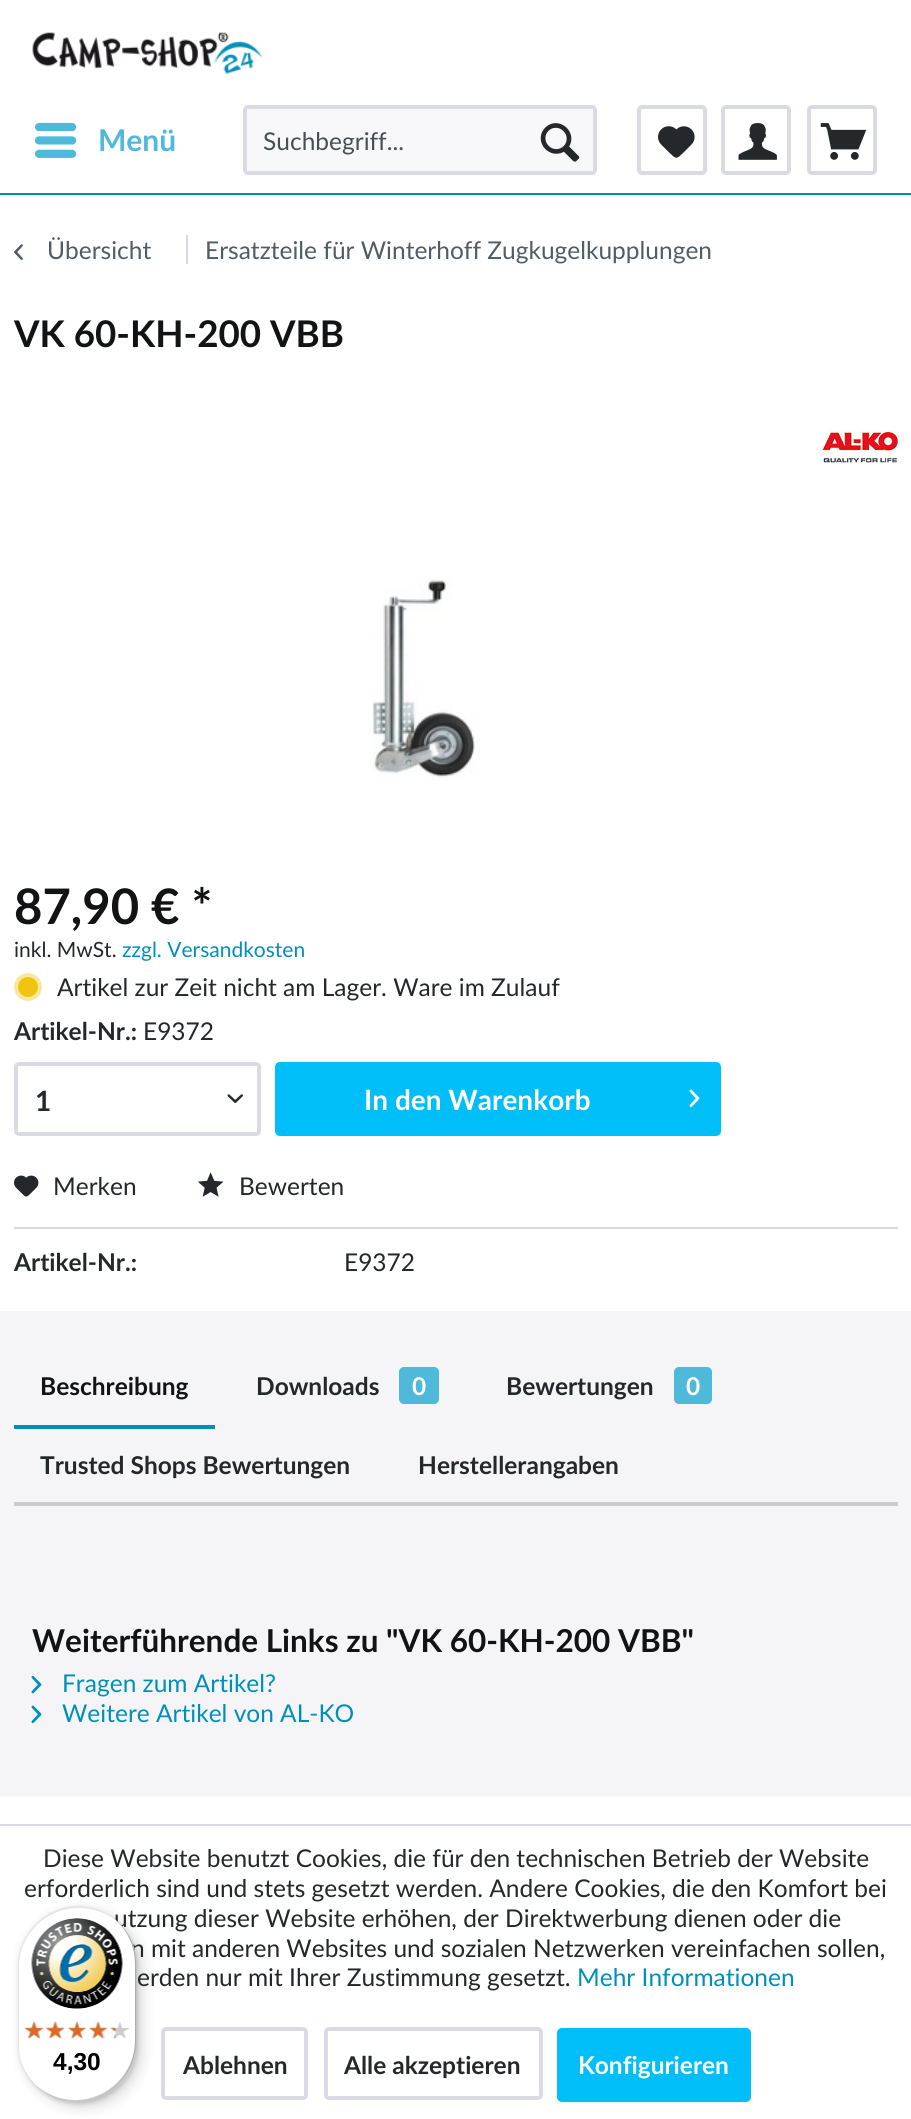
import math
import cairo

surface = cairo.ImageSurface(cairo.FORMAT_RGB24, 911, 2119)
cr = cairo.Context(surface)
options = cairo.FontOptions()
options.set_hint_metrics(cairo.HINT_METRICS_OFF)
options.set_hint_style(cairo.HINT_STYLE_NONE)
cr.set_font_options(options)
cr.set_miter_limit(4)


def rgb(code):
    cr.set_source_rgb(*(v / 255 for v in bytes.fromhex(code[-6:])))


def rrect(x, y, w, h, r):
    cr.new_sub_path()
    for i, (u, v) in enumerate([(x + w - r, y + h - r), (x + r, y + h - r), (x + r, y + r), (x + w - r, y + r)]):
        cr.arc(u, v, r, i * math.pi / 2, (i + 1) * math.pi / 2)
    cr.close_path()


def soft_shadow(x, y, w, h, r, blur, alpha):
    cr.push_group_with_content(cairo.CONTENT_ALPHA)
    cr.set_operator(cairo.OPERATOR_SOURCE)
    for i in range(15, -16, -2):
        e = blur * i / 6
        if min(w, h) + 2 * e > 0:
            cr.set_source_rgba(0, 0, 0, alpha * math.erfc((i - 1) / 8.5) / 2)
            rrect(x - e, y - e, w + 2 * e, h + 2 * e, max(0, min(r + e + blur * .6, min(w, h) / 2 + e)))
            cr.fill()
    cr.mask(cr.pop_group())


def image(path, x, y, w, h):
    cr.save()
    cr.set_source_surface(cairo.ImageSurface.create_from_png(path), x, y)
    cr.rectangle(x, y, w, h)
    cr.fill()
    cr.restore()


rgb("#ffffff")
cr.paint()
rgb("#008fbb")
cr.rectangle(0, 193, 911, 2)
cr.fill()
image("img/1.png", 32, 32, 230, 42)
image("img/2.png", 35, 122, 42, 36)
rgb("#f8f8fa")
rrect(245, 107, 350, 66, 3)
cr.fill_preserve()
rgb("#dadae5")
cr.set_line_width(4)
cr.stroke()
image("img/3.png", 540, 123, 40, 39)
rrect(639, 107, 66, 66, 3)
cr.stroke()
image("img/4.png", 658, 126, 37, 32)
rrect(723, 107, 66, 66, 3)
cr.stroke()
image("img/5.png", 738, 123, 39, 37)
rrect(809, 107, 66, 66, 3)
cr.stroke()
image("img/6.png", 820, 123, 47, 37)
image("img/7.png", 14, 244, 9, 16)
cr.rectangle(186, 235, 2, 29)
cr.fill()
image("img/8.png", 822, 430, 76, 33)
image("img/9.png", 372, 577, 103, 203)
rgb("#f1c40f")
cr.arc(28, 987, 12, 0, 2 * math.pi)
cr.fill_preserve()
rgb("#f9e8a0")
cr.stroke()
rrect(16, 1064, 243, 70, 3)
rgb("#dadae5")
cr.stroke()
image("img/10.png", 227, 1094, 16, 9)
rgb("#00bef8")
rrect(275, 1062, 446, 74, 5)
cr.fill()
image("img/11.png", 689, 1089, 11, 19)
rgb("#dadae5")
cr.rectangle(14, 1227, 884, 2)
cr.fill()
image("img/12.png", 14, 1175, 25, 22)
image("img/13.png", 197, 1172, 27, 25)
for x, y, w, h, color in [
    (0, 1311, 911, 486, "#f5f5f8"),
    (14, 1502, 884, 4, "#cccccc"),
    (14, 1425, 201, 4, "#008fbb"),
]:
    rgb(color)
    cr.rectangle(x, y, w, h)
    cr.fill()
rgb("#4fb9da")
rrect(399, 1367, 40, 37, 5)
cr.fill()
rrect(674, 1367, 38, 37, 5)
cr.fill()
image("img/14.png", 31, 1675, 11, 19)
image("img/15.png", 31, 1705, 11, 19)
rgb("#dadae5")
cr.rectangle(0, 1824, 911, 2)
cr.fill()
rrect(163, 2029, 143, 69, 3)
cr.stroke()
rrect(326, 2029, 215, 69, 3)
cr.stroke()
rgb("#00bef8")
rrect(557, 2028, 194, 74, 5)
cr.fill()
rgb("#000000")
soft_shadow(23, 1911, 119, 196, 59.5, 7, 0.15)
soft_shadow(19, 1908, 119, 196, 59.5, 2, 0.15)
cr.select_font_face("Lato", cairo.FONT_SLANT_NORMAL, cairo.FONT_WEIGHT_BOLD)
cr.set_font_size(30)
rgb("#4fb9da")
cr.move_to(98, 151)
cr.show_text("Menü")
cr.select_font_face("Lato")
cr.set_font_size(24.5)
rgb("#474f55")
cr.move_to(263, 150)
cr.show_text("Suchbegriff...")
rgb("#525c63")
cr.move_to(47, 259)
cr.show_text("Übersicht")
cr.move_to(205, 259)
cr.show_text("Ersatzteile für Winterhoff Zugkugelkupplungen")
cr.select_font_face("Lato", cairo.FONT_SLANT_NORMAL, cairo.FONT_WEIGHT_BOLD)
cr.set_font_size(36.75)
rgb("#121314")
cr.move_to(14, 347)
cr.show_text("VK 60-KH-200 VBB")
cr.set_font_size(49)
cr.move_to(14, 924)
cr.show_text("87,90 € *")
cr.select_font_face("Lato")
cr.set_font_size(21)
rgb("#24282b")
cr.move_to(14, 957)
cr.show_text("inkl. MwSt.")
rgb("#008fbb")
cr.move_to(122, 957)
cr.show_text("zzgl. Versandkosten")
cr.set_font_size(24.5)
rgb("#24282b")
cr.move_to(57, 996)
cr.show_text("Artikel zur Zeit nicht am Lager. Ware im Zulauf")
cr.select_font_face("Lato", cairo.FONT_SLANT_NORMAL, cairo.FONT_WEIGHT_BOLD)
cr.move_to(14, 1040)
cr.show_text("Artikel-Nr.:")
cr.select_font_face("Lato")
cr.move_to(143, 1040)
cr.show_text("E9372")
cr.select_font_face("Lato", cairo.FONT_SLANT_NORMAL, cairo.FONT_WEIGHT_BOLD)
cr.set_font_size(28)
cr.move_to(35, 1111)
cr.show_text("1")
rgb("#ffffff")
cr.move_to(364, 1110)
cr.show_text("In den Warenkorb")
cr.select_font_face("Lato")
cr.set_font_size(24.5)
rgb("#24282b")
cr.move_to(53, 1195)
cr.show_text("Merken")
cr.move_to(239, 1195)
cr.show_text("Bewerten")
cr.select_font_face("Lato", cairo.FONT_SLANT_NORMAL, cairo.FONT_WEIGHT_BOLD)
cr.move_to(14, 1271)
cr.show_text("Artikel-Nr.:")
cr.select_font_face("Lato")
cr.move_to(344, 1271)
cr.show_text("E9372")
cr.select_font_face("Lato", cairo.FONT_SLANT_NORMAL, cairo.FONT_WEIGHT_BOLD)
rgb("#121314")
cr.move_to(40, 1395)
cr.show_text("Beschreibung")
rgb("#24282b")
cr.move_to(256, 1395)
cr.show_text("Downloads")
rgb("#ffffff")
cr.move_to(412, 1395)
cr.show_text("0")
rgb("#24282b")
cr.move_to(506, 1395)
cr.show_text("Bewertungen")
rgb("#ffffff")
cr.move_to(686, 1395)
cr.show_text("0")
rgb("#24282b")
cr.move_to(40, 1474)
cr.show_text("Trusted Shops Bewertungen")
cr.move_to(418, 1474)
cr.show_text("Herstellerangaben")
cr.set_font_size(31.5)
rgb("#121314")
cr.move_to(32, 1652)
cr.show_text("Weiterführende Links zu \"VK 60-KH-200 VBB\"")
cr.select_font_face("Lato")
cr.set_font_size(24.5)
rgb("#008fbb")
cr.move_to(62, 1692)
cr.show_text("Fragen zum Artikel?")
cr.move_to(62, 1722)
cr.show_text("Weitere Artikel von AL-KO")
rgb("#24282b")
for x, y, s in [
    (43, 1867, "Diese Website benutzt Cookies, die für den technischen Betrieb der Website"),
    (24, 1897, "erforderlich sind und stets gesetzt werden. Andere Cookies, die den Komfort bei"),
    (114, 1927, "utzung dieser Website erhöhen, der Direktwerbung dienen oder die"),
    (131, 1957, "n mit anderen Websites und sozialen Netzwerken vereinfachen sollen,"),
    (137, 1986, "erden nur mit Ihrer Zustimmung gesetzt."),
]:
    cr.move_to(x, y)
    cr.show_text(s)
rgb("#008fbb")
cr.move_to(577, 1986)
cr.show_text("Mehr Informationen")
cr.select_font_face("Lato", cairo.FONT_SLANT_NORMAL, cairo.FONT_WEIGHT_BOLD)
rgb("#24282b")
cr.move_to(183, 2074)
cr.show_text("Ablehnen")
cr.move_to(344, 2074)
cr.show_text("Alle akzeptieren")
rgb("#ffffff")
cr.move_to(578, 2074)
cr.show_text("Konfigurieren")
rrect(18, 1906, 119, 196, 59.5)
cr.fill()
cr.set_source_rgba(0, 0, 0, 0.1)
cr.new_path()
cr.move_to(79, 1908)
cr.curve_to(98, 1908, 115, 1917, 126, 1930)
cr.curve_to(115, 1916, 97, 1906, 78, 1906)
cr.curve_to(45, 1906, 18, 1933, 18, 1966)
cr.line_to(18, 2042)
cr.curve_to(18, 2055, 22, 2066, 28, 2076)
cr.curve_to(22, 2067, 19, 2056, 19, 2044)
cr.line_to(19, 1967)
cr.curve_to(19, 1934, 46, 1908, 79, 1908)
cr.close_path()
cr.fill()
cr.set_source_rgba(0, 0, 0, 0.2)
cr.new_path()
cr.move_to(36, 2085)
cr.curve_to(47, 2096, 61, 2102, 78, 2102)
cr.curve_to(110, 2102, 137, 2075, 137, 2042)
cr.line_to(137, 1966)
cr.curve_to(137, 1946, 128, 1930, 114, 1919)
cr.curve_to(127, 1930, 135, 1946, 135, 1964)
cr.line_to(135, 2040)
cr.curve_to(135, 2073, 108, 2100, 75, 2100)
cr.curve_to(60, 2100, 46, 2094, 36, 2085)
cr.close_path()
cr.fill()
cr.set_source_rgba(0.196, 0.196, 0.196, 0.2)
cr.new_path()
cr.move_to(44, 2092)
cr.curve_to(54, 2098, 65, 2102, 78, 2102)
cr.curve_to(110, 2102, 137, 2075, 137, 2042)
cr.line_to(137, 1966)
cr.curve_to(137, 1946, 127, 1928, 113, 1917)
cr.curve_to(126, 1928, 135, 1945, 135, 1964)
cr.line_to(135, 2041)
cr.curve_to(135, 2074, 109, 2101, 76, 2101)
cr.curve_to(64, 2101, 53, 2098, 44, 2092)
cr.close_path()
cr.fill()
cr.set_source_rgba(1, 1, 1, 0.3)
cr.new_path()
cr.move_to(38, 2087)
cr.curve_to(49, 2096, 62, 2102, 78, 2102)
cr.curve_to(110, 2102, 137, 2075, 137, 2042)
cr.line_to(137, 1966)
cr.curve_to(137, 1946, 127, 1928, 112, 1917)
cr.curve_to(127, 1928, 136, 1945, 136, 1964)
cr.line_to(136, 2041)
cr.curve_to(136, 2074, 109, 2101, 76, 2101)
cr.curve_to(61, 2101, 48, 2096, 38, 2087)
cr.close_path()
cr.fill()
image("img/16.png", 31, 1918, 92, 91)
image("img/17.png", 24, 2022, 20, 16)
image("img/18.png", 47, 2021, 18, 18)
image("img/19.png", 68, 2022, 18, 16)
image("img/20.png", 89, 2021, 20, 18)
image("img/21.png", 110, 2022, 20, 16)
image("img/22.png", 24, 2021, 20, 18)
image("img/23.png", 45, 2021, 20, 18)
image("img/24.png", 68, 2021, 18, 18)
image("img/25.png", 89, 2021, 18, 18)
image("img/26.png", 110, 2027, 6, 12)
cr.select_font_face("Liberation Sans", cairo.FONT_SLANT_NORMAL, cairo.FONT_WEIGHT_BOLD)
rgb("#000000")
cr.move_to(53, 2070)
cr.show_text("4,30")
surface.write_to_png("page.png")
